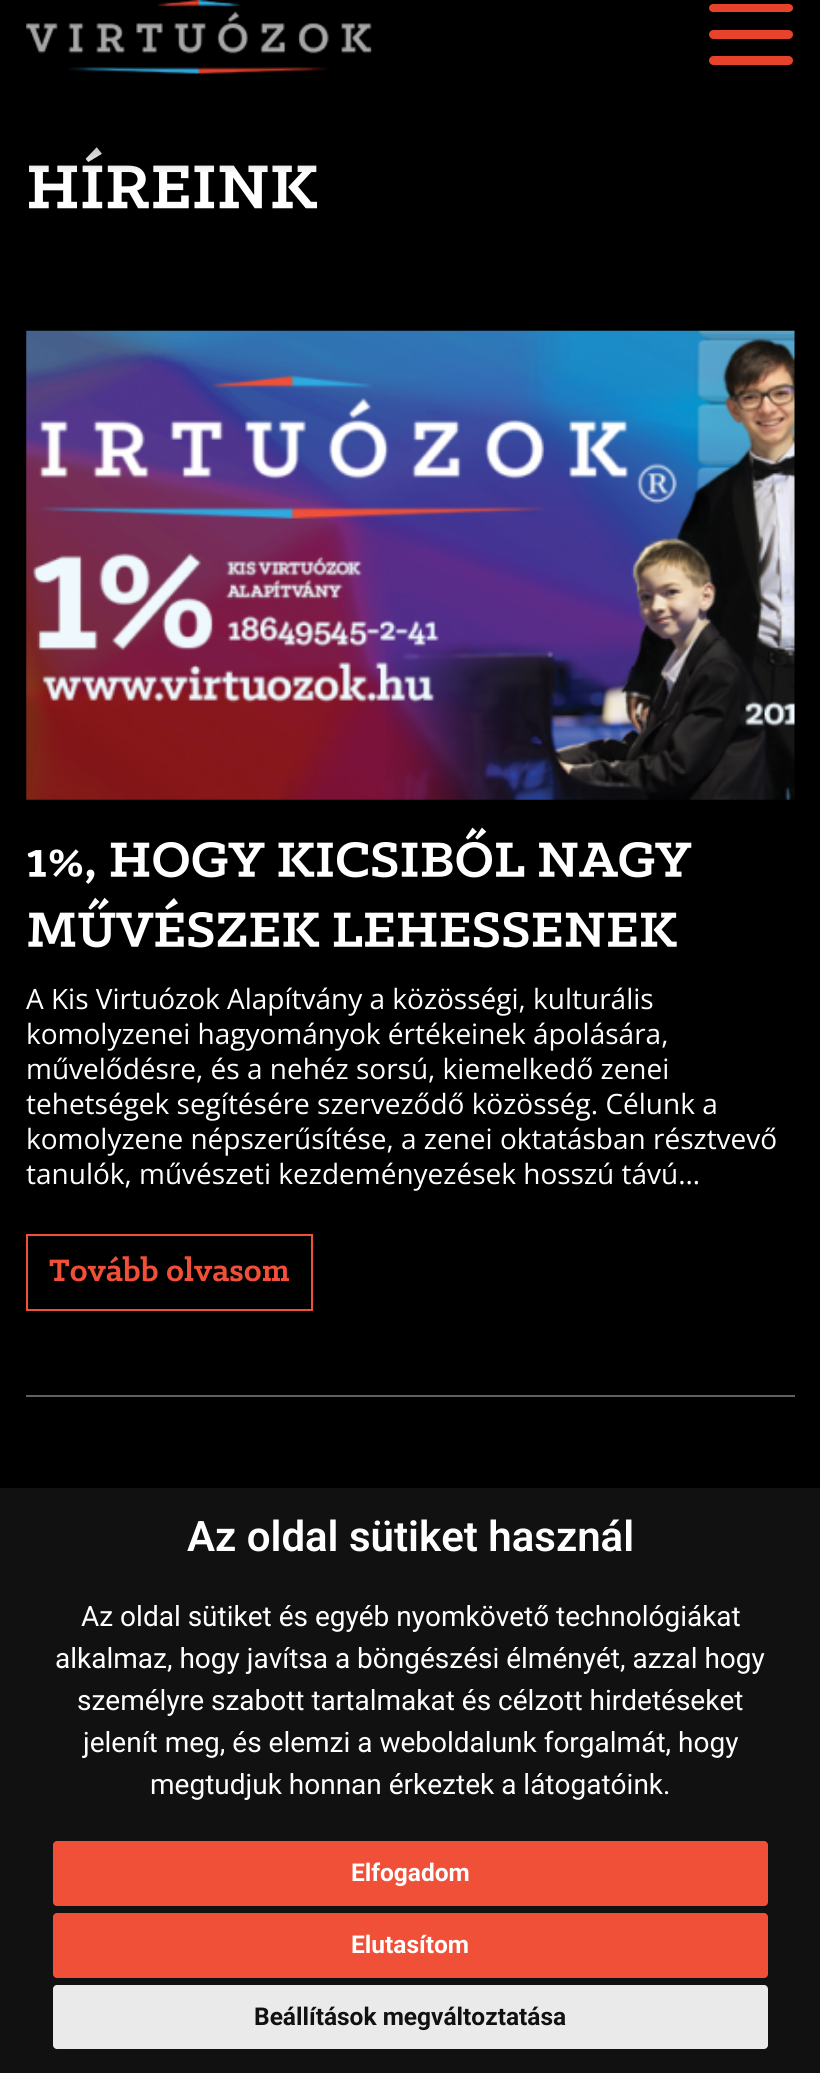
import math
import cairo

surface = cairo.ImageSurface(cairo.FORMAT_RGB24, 820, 2073)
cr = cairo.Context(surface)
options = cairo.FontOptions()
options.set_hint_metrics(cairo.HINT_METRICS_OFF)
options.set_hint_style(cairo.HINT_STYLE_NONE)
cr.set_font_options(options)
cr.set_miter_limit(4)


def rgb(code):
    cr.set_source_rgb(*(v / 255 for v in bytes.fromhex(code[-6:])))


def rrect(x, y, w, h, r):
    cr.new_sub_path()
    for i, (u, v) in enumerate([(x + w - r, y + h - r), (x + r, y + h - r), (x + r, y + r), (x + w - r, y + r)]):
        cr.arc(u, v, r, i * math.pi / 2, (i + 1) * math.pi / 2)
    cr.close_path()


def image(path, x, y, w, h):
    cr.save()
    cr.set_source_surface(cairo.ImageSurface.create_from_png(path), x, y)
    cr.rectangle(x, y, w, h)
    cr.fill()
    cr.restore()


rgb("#000000")
cr.paint()
image("img/1.png", 26, 0, 346, 74)
rgb("#e7422b")
rrect(709, 4, 84, 8, 4)
cr.fill()
rrect(709, 30, 84, 9, 4.5)
cr.fill()
rrect(709, 56, 84, 9, 4.5)
cr.fill()
image("img/2.png", 29, 147, 289, 62)
gradient = cairo.LinearGradient(410, 0, 410, 175)
gradient.add_color_stop_rgba(0.35, 0, 0, 0, 0.9)
gradient.add_color_stop_rgba(1, 0, 0, 0, 0)
cr.set_source(gradient)
cr.rectangle(29, 147, 288, 25)
cr.fill()
image("img/3.png", 26, 330, 769, 470)
image("img/4.png", 27, 827, 665, 57)
image("img/5.png", 28, 897, 649, 51)
cr.rectangle(27, 1235, 285, 75)
rgb("#f05037")
cr.stroke()
image("img/6.png", 49, 1256, 240, 26)
rgb("#616161")
cr.rectangle(26, 1395, 769, 2)
cr.fill()
rgb("#111111")
cr.rectangle(0, 1488, 820, 585)
cr.fill()
rgb("#f05037")
rrect(53, 1841, 715, 65, 4)
cr.fill()
rrect(53, 1913, 715, 65, 4)
cr.fill()
rgb("#eaeaea")
rrect(53, 1985, 715, 64, 4)
cr.fill()
cr.select_font_face("Open Sans")
cr.set_font_size(28)
rgb("#ffffff")
for x, y, s in [
    (26, 1009, "A Kis Virtuózok Alapítvány a közösségi, kulturális"),
    (26, 1044, "komolyzenei hagyományok értékeinek ápolására,"),
    (26, 1079, "művelődésre, és a nehéz sorsú, kiemelkedő zenei"),
    (26, 1114, "tehetségek segítésére szerveződő közösség. Célunk a"),
    (26, 1149, "komolyzene népszerűsítése, a zenei oktatásban résztvevő"),
    (26, 1184, "tanulók, művészeti kezdeményezések hosszú távú…"),
]:
    cr.move_to(x, y)
    cr.show_text(s)
cr.select_font_face("Roboto SemiBold")
cr.set_font_size(42)
cr.move_to(187, 1551)
cr.show_text("Az oldal sütiket használ")
cr.select_font_face("Roboto")
cr.set_font_size(28)
for x, y, s in [
    (81, 1626, "Az oldal sütiket és egyéb nyomkövető technológiákat"),
    (55, 1668, "alkalmaz, hogy javítsa a böngészési élményét, azzal hogy"),
    (77, 1710, "személyre szabott tartalmakat és célzott hirdetéseket"),
    (83, 1752, "jelenít meg, és elemzi a weboldalunk forgalmát, hogy"),
    (150, 1794, "megtudjuk honnan érkeztek a látogatóink."),
]:
    cr.move_to(x, y)
    cr.show_text(s)
cr.select_font_face("Roboto", cairo.FONT_SLANT_NORMAL, cairo.FONT_WEIGHT_BOLD)
cr.set_font_size(24.5)
cr.move_to(351, 1881)
cr.show_text("Elfogadom")
cr.move_to(351, 1953)
cr.show_text("Elutasítom")
rgb("#111111")
cr.move_to(254, 2025)
cr.show_text("Beállítások megváltoztatása")
surface.write_to_png("page.png")
